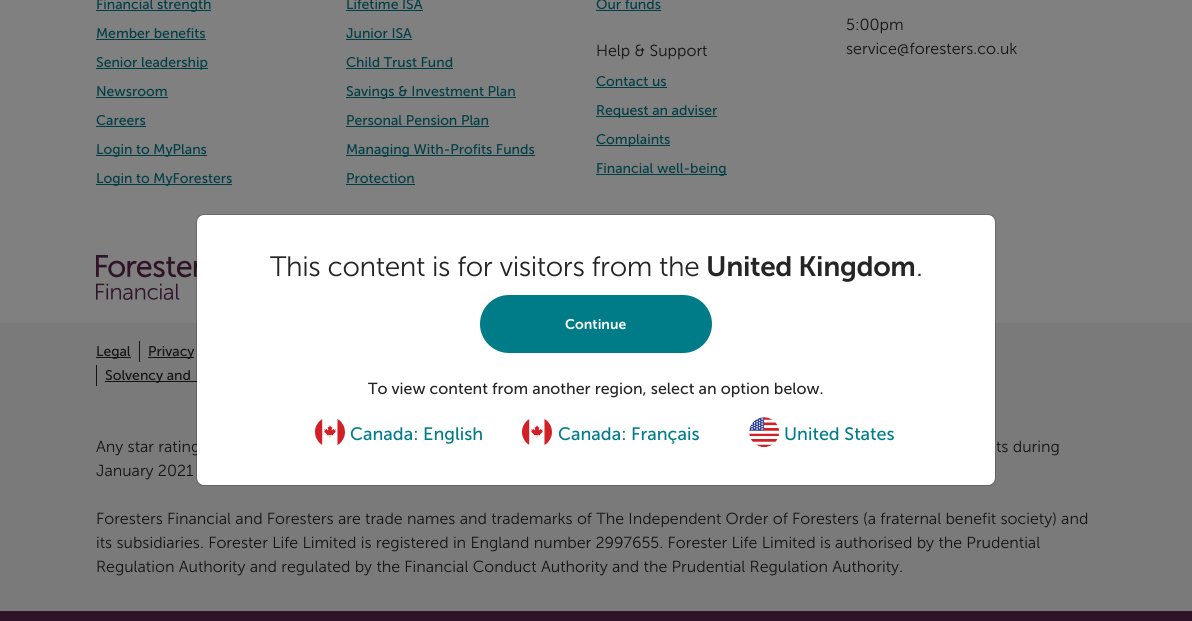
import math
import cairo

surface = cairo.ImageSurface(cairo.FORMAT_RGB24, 1192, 621)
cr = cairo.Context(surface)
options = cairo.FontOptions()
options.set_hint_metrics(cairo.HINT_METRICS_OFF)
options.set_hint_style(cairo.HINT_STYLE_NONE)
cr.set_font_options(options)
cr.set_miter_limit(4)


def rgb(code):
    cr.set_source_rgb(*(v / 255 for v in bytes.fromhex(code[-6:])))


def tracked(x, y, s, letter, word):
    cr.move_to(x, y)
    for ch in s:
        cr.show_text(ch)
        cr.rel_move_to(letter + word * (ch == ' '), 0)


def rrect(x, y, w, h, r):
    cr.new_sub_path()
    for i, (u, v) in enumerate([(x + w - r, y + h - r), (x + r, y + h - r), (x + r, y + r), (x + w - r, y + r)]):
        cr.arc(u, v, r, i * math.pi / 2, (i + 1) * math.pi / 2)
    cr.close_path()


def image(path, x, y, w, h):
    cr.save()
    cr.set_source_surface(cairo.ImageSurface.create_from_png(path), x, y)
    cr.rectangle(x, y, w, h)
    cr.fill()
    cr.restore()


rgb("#808080")
cr.paint()
for x, y, w, h, color in [
    (0, 611, 1192, 10, "#2f1428"),
    (96, 10, 115, 1, "#003e45"),
    (96, 39, 110, 1, "#003e45"),
    (96, 68, 112, 1, "#003e45"),
    (96, 97, 72, 1, "#003e45"),
    (96, 126, 50, 1, "#003e45"),
    (96, 155, 111, 1, "#003e45"),
    (96, 184, 136, 1, "#003e45"),
    (346, 10, 77, 1, "#003e45"),
    (346, 39, 66, 1, "#003e45"),
    (346, 68, 107, 1, "#003e45"),
    (346, 97, 170, 1, "#003e45"),
    (346, 126, 143, 1, "#003e45"),
    (346, 155, 189, 1, "#003e45"),
    (346, 184, 69, 1, "#003e45"),
    (596, 10, 65, 1, "#003e45"),
    (596, 87, 71, 1, "#003e45"),
    (596, 116, 121, 1, "#003e45"),
    (596, 145, 74, 1, "#003e45"),
    (596, 174, 131, 1, "#003e45"),
]:
    rgb(color)
    cr.rectangle(x, y, w, h)
    cr.fill()
image("img/1.png", 96, 255, 101, 45)
for x, y, w, h, color in [
    (0, 323, 1192, 288, "#7a7a7b"),
    (96, 357, 35, 1, "#131313"),
    (139, 341, 1, 21, "#131313"),
    (148, 357, 46, 1, "#131313"),
    (96, 365, 1, 21, "#131313"),
    (105, 381, 92, 1, "#131313"),
]:
    rgb(color)
    cr.rectangle(x, y, w, h)
    cr.fill()
cr.select_font_face("Museo Sans")
cr.set_font_size(14)
rgb("#003e45")
for x, y, s in [
    (96, 9, "Financial strength"),
    (96, 38, "Member benefits"),
    (96, 67, "Senior leadership"),
    (96, 96, "Newsroom"),
    (96, 125, "Careers"),
    (96, 154, "Login to MyPlans"),
    (96, 183, "Login to MyForesters"),
    (346, 9, "Lifetime ISA"),
    (346, 38, "Junior ISA"),
    (346, 67, "Child Trust Fund"),
    (346, 96, "Savings & Investment Plan"),
    (346, 125, "Personal Pension Plan"),
    (346, 154, "Managing With-Profits Funds"),
    (346, 183, "Protection"),
    (596, 9, "Our funds"),
]:
    cr.move_to(x, y)
    cr.show_text(s)
cr.select_font_face("Museo Sans Light")
cr.set_font_size(16)
rgb("#131313")
cr.move_to(596, 56)
cr.show_text("Help & Support")
cr.select_font_face("Museo Sans")
cr.set_font_size(14)
rgb("#003e45")
for x, y, s in [
    (596, 86, "Contact us"),
    (596, 115, "Request an adviser"),
    (596, 144, "Complaints"),
    (596, 173, "Financial well-being"),
]:
    cr.move_to(x, y)
    cr.show_text(s)
cr.select_font_face("Museo Sans Light")
cr.set_font_size(16)
rgb("#131313")
cr.move_to(846, 30)
cr.show_text("5:00pm")
cr.move_to(846, 54)
cr.show_text("service@foresters.co.uk")
cr.select_font_face("Museo Sans")
cr.set_font_size(14)
for x, y, s in [
    (96, 356, "Legal"),
    (148, 356, "Privacy"),
    (105, 380, "Solvency and"),
]:
    cr.move_to(x, y)
    cr.show_text(s)
cr.select_font_face("Museo Sans Light")
cr.set_font_size(16)
for x, y, s in [
    (96, 452, "Any star rating"),
    (996, 452, "ts during"),
    (96, 476, "January 2021"),
    (96, 524, "Foresters Financial and Foresters are trade names and trademarks of The Independent Order of Foresters (a fraternal benefit society) and"),
    (96, 548, "its subsidiaries. Forester Life Limited is registered in England number 2997655. Forester Life Limited is authorised by the Prudential"),
    (96, 572, "Regulation Authority and regulated by the Financial Conduct Authority and the Prudential Regulation Authority."),
]:
    cr.move_to(x, y)
    cr.show_text(s)
rgb("#ffffff")
rrect(197, 215, 798, 270, 7)
cr.fill()
rrect(196.5, 214.5, 799, 271, 7.5)
cr.set_source_rgba(0, 0, 0, 0.18)
cr.set_line_width(1)
cr.stroke()
cr.set_font_size(28)
rgb("#252525")
tracked(270, 276, "This content is for visitors from the", -0.4, 0)
cr.select_font_face("Museo Sans SemiBold")
tracked(706, 276, "United Kingdom", -0.4, 0)
cr.select_font_face("Museo Sans Light")
tracked(916, 276, ".", -0.4, 0)
rgb("#007c89")
rrect(480, 295, 232, 58, 29)
cr.fill()
cr.select_font_face("Museo Sans SemiBold")
cr.set_font_size(14)
rgb("#ffffff")
cr.move_to(565, 329)
cr.show_text("Continue")
cr.select_font_face("Museo Sans")
cr.set_font_size(16)
rgb("#252525")
cr.move_to(368, 394)
cr.show_text("To view content from another region, select an option below.")
image("img/2.png", 315, 419, 30, 26)
cr.set_font_size(18)
rgb("#007c89")
cr.move_to(350, 440)
cr.show_text("Canada: English")
image("img/2.png", 522, 419, 30, 26)
cr.move_to(558, 440)
cr.show_text("Canada: Français")
image("img/3.png", 749, 417, 30, 31)
cr.move_to(784, 440)
cr.show_text("United States")
surface.write_to_png("page.png")
